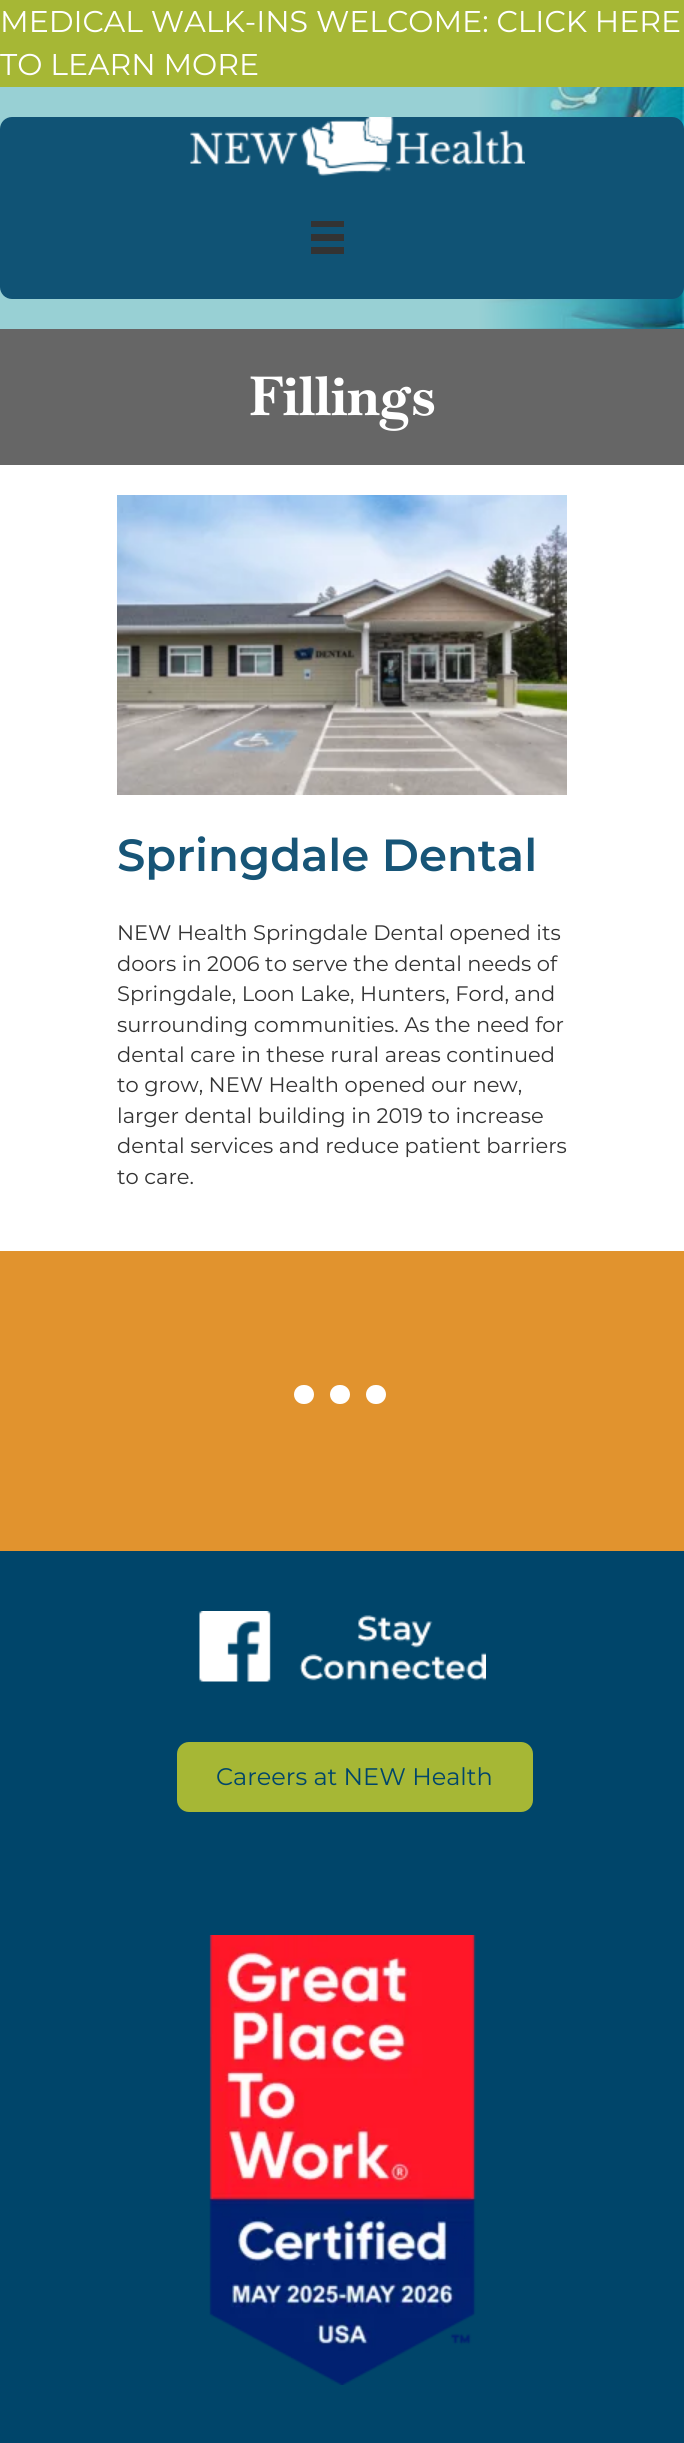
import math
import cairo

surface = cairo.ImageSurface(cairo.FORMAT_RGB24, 684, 2443)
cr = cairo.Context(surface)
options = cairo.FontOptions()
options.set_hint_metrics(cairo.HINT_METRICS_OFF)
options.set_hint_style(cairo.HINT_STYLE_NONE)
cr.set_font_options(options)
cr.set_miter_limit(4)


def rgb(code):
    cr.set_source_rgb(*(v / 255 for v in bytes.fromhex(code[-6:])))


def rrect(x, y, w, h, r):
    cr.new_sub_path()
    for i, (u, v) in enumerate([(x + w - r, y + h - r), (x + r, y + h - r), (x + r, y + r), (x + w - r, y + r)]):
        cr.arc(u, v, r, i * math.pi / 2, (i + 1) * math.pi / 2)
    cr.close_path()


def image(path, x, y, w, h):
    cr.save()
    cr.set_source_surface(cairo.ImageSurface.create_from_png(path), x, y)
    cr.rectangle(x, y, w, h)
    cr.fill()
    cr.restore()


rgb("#00456a")
cr.paint()
rgb("#a6b735")
cr.rectangle(0, 0, 684, 87)
cr.fill()
image("img/1.png", 480, 87, 204, 242)
gradient = cairo.LinearGradient(0, 208, 684, 208)
gradient.add_color_stop_rgba(0, 0.596, 0.816, 0.831, 1)
gradient.add_color_stop_rgba(0.7, 0.596, 0.816, 0.831, 1)
gradient.add_color_stop_rgba(1, 0.596, 0.816, 0.831, 0)
cr.set_source(gradient)
cr.rectangle(0, 87, 680, 242)
cr.fill()
rgb("#105375")
rrect(0, 117, 684, 182, 12)
cr.fill()
image("img/2.png", 190, 117, 335, 59)
for x, y, w, h, color in [
    (311, 221, 33, 6, "#333333"),
    (311, 234, 33, 7, "#333333"),
    (311, 247, 33, 7, "#333333"),
    (0, 329, 684, 136, "#666666"),
    (0, 465, 684, 786, "#ffffff"),
]:
    rgb(color)
    cr.rectangle(x, y, w, h)
    cr.fill()
image("img/3.png", 117, 495, 450, 300)
rgb("#e1932e")
cr.rectangle(0, 1251, 684, 300)
cr.fill()
rgb("#ffffff")
rrect(294, 1385, 20, 19, 9.5)
cr.fill()
rrect(330, 1385, 20, 19, 9.5)
cr.fill()
rrect(366, 1385, 20, 19, 9.5)
cr.fill()
image("img/4.png", 199, 1611, 287, 71)
rgb("#a6b735")
rrect(178.5, 1743.5, 353, 67, 10.5)
cr.fill_preserve()
cr.set_line_width(3)
cr.stroke()
image("img/5.png", 209, 1935, 267, 450)
cr.select_font_face("Montserrat")
cr.set_font_size(30)
rgb("#ffffff")
cr.move_to(0, 32)
cr.show_text("MEDICAL WALK-INS WELCOME: CLICK HERE")
cr.move_to(0, 75)
cr.show_text("TO LEARN MORE")
cr.select_font_face("Baskervville", cairo.FONT_SLANT_NORMAL, cairo.FONT_WEIGHT_BOLD)
cr.set_font_size(54)
cr.move_to(249, 415)
cr.show_text("Fillings")
cr.select_font_face("Montserrat SemiBold")
cr.set_font_size(45)
rgb("#175577")
cr.move_to(117, 871)
cr.show_text("Springdale Dental")
cr.select_font_face("Montserrat")
cr.set_font_size(21)
rgb("#333333")
for x, y, s in [
    (117, 940, "NEW Health Springdale Dental opened its"),
    (117, 971, "doors in 2006 to serve the dental needs of"),
    (117, 1001, "Springdale, Loon Lake, Hunters, Ford, and"),
    (117, 1032, "surrounding communities. As the need for"),
    (117, 1062, "dental care in these rural areas continued"),
    (117, 1092, "to grow, NEW Health opened our new,"),
    (117, 1123, "larger dental building in 2019 to increase"),
    (117, 1153, "dental services and reduce patient barriers"),
    (117, 1184, "to care."),
]:
    cr.move_to(x, y)
    cr.show_text(s)
cr.set_font_size(24)
rgb("#00456a")
cr.move_to(216, 1785)
cr.show_text("Careers at NEW Health")
surface.write_to_png("page.png")
